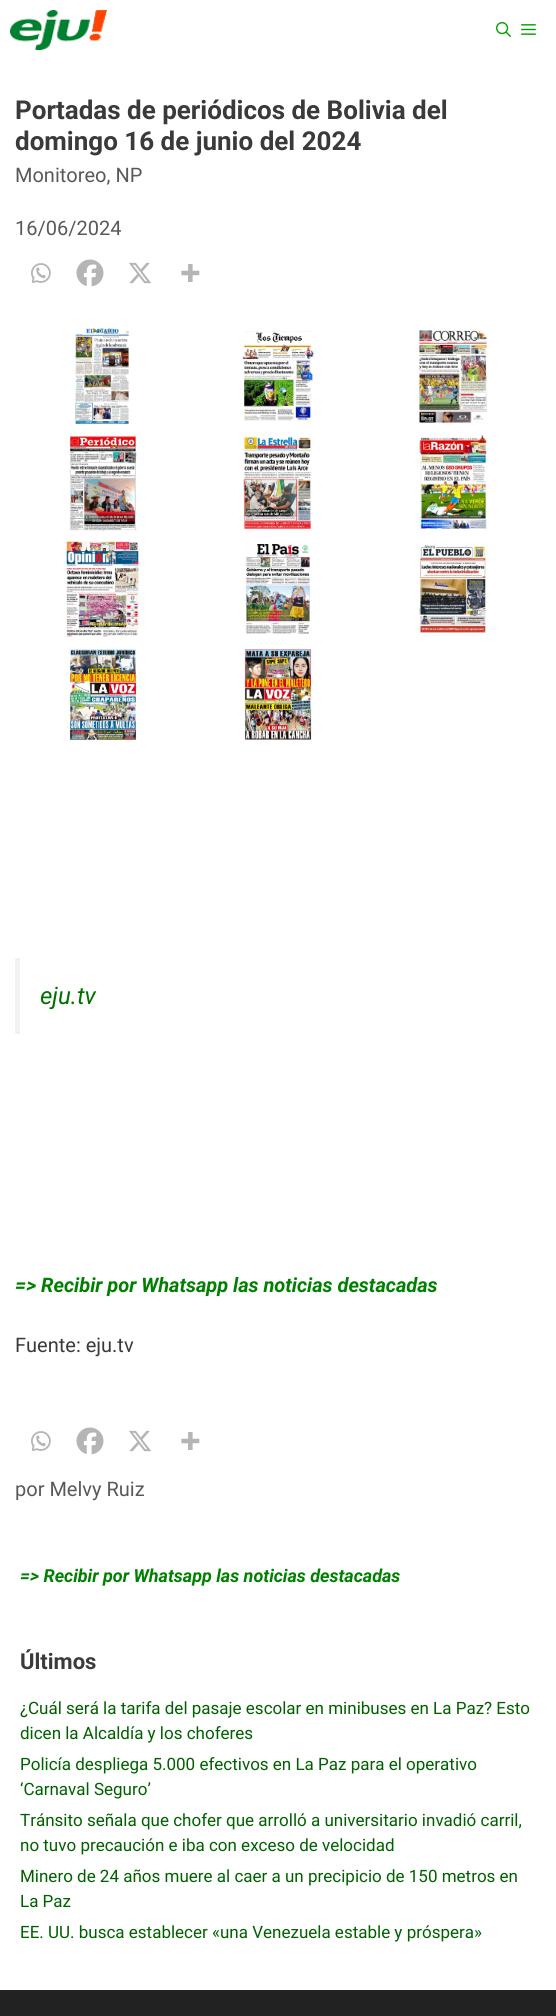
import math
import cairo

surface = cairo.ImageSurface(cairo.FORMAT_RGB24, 556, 2016)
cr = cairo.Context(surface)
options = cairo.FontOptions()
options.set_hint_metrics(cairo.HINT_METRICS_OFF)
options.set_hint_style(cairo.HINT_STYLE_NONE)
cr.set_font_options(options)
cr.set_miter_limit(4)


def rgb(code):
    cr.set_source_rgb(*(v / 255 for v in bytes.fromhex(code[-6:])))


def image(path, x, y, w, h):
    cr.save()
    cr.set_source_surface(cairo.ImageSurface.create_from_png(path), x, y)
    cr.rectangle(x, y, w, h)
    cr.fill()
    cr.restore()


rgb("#ffffff")
cr.paint()
image("img/1.png", 10, 10, 97, 40)
image("img/2.png", 496, 22, 15, 15)
image("img/3.png", 521, 24, 15, 11)
image("img/4.png", 31, 263, 20, 20)
image("img/5.png", 76, 259, 28, 28)
image("img/6.png", 129, 262, 22, 22)
image("img/7.png", 181, 264, 19, 18)
image("img/8.png", 75, 328, 54, 96)
image("img/9.png", 242, 331, 72, 90)
image("img/10.png", 417, 330, 71, 94)
image("img/11.png", 68, 436, 70, 95)
image("img/12.png", 243, 436, 70, 94)
image("img/13.png", 419, 435, 68, 94)
image("img/14.png", 66, 541, 73, 96)
image("img/15.png", 244, 544, 66, 90)
image("img/16.png", 419, 544, 67, 89)
image("img/17.png", 69, 649, 68, 92)
image("img/18.png", 244, 649, 68, 91)
rgb("#f2f2f2")
cr.rectangle(15, 958, 5, 76)
cr.fill()
image("img/4.png", 31, 1431, 20, 20)
image("img/5.png", 76, 1427, 28, 28)
image("img/6.png", 129, 1430, 22, 22)
image("img/7.png", 181, 1432, 19, 18)
rgb("#222222")
cr.rectangle(0, 1990, 556, 26)
cr.fill()
cr.select_font_face("Roboto", cairo.FONT_SLANT_NORMAL, cairo.FONT_WEIGHT_BOLD)
cr.set_font_size(26)
rgb("#3a3a3a")
cr.move_to(15, 119)
cr.show_text("Portadas de periódicos de Bolivia del")
cr.move_to(15, 150)
cr.show_text("domingo 16 de junio del 2024")
cr.select_font_face("Roboto")
cr.set_font_size(20)
rgb("#595959")
cr.move_to(15, 182)
cr.show_text("Monitoreo, NP")
cr.move_to(15, 235)
cr.show_text("16/06/2024")
cr.select_font_face("Roboto", cairo.FONT_SLANT_ITALIC)
cr.set_font_size(24)
rgb("#007000")
cr.move_to(40, 1004)
cr.show_text("eju.tv")
cr.select_font_face("Roboto", cairo.FONT_SLANT_ITALIC, cairo.FONT_WEIGHT_BOLD)
cr.set_font_size(20)
rgb("#008000")
cr.move_to(15, 1292)
cr.show_text("=> Recibir por Whatsapp las noticias destacadas")
cr.select_font_face("Roboto")
rgb("#3a3a3a")
cr.move_to(15, 1352)
cr.show_text("Fuente: eju.tv")
rgb("#595959")
cr.move_to(15, 1496)
cr.show_text("por Melvy Ruiz")
cr.select_font_face("Roboto", cairo.FONT_SLANT_ITALIC, cairo.FONT_WEIGHT_BOLD)
cr.set_font_size(18)
rgb("#008000")
cr.move_to(20, 1582)
cr.show_text("=> Recibir por Whatsapp las noticias destacadas")
cr.select_font_face("Roboto", cairo.FONT_SLANT_NORMAL, cairo.FONT_WEIGHT_BOLD)
cr.set_font_size(22)
rgb("#3a3a3a")
cr.move_to(20, 1669)
cr.show_text("Últimos")
cr.select_font_face("Roboto")
cr.set_font_size(17)
rgb("#006000")
for x, y, s in [
    (20, 1714, "¿Cuál será la tarifa del pasaje escolar en minibuses en La Paz? Esto"),
    (20, 1739, "dicen la Alcaldía y los choferes"),
    (20, 1770, "Policía despliega 5.000 efectivos en La Paz para el operativo"),
    (20, 1795, "‘Carnaval Seguro’"),
    (20, 1826, "Tránsito señala que chofer que arrolló a universitario invadió carril,"),
    (20, 1851, "no tuvo precaución e iba con exceso de velocidad"),
    (20, 1882, "Minero de 24 años muere al caer a un precipicio de 150 metros en"),
    (20, 1907, "La Paz"),
    (20, 1938, "EE. UU. busca establecer «una Venezuela estable y próspera»"),
]:
    cr.move_to(x, y)
    cr.show_text(s)
surface.write_to_png("page.png")
